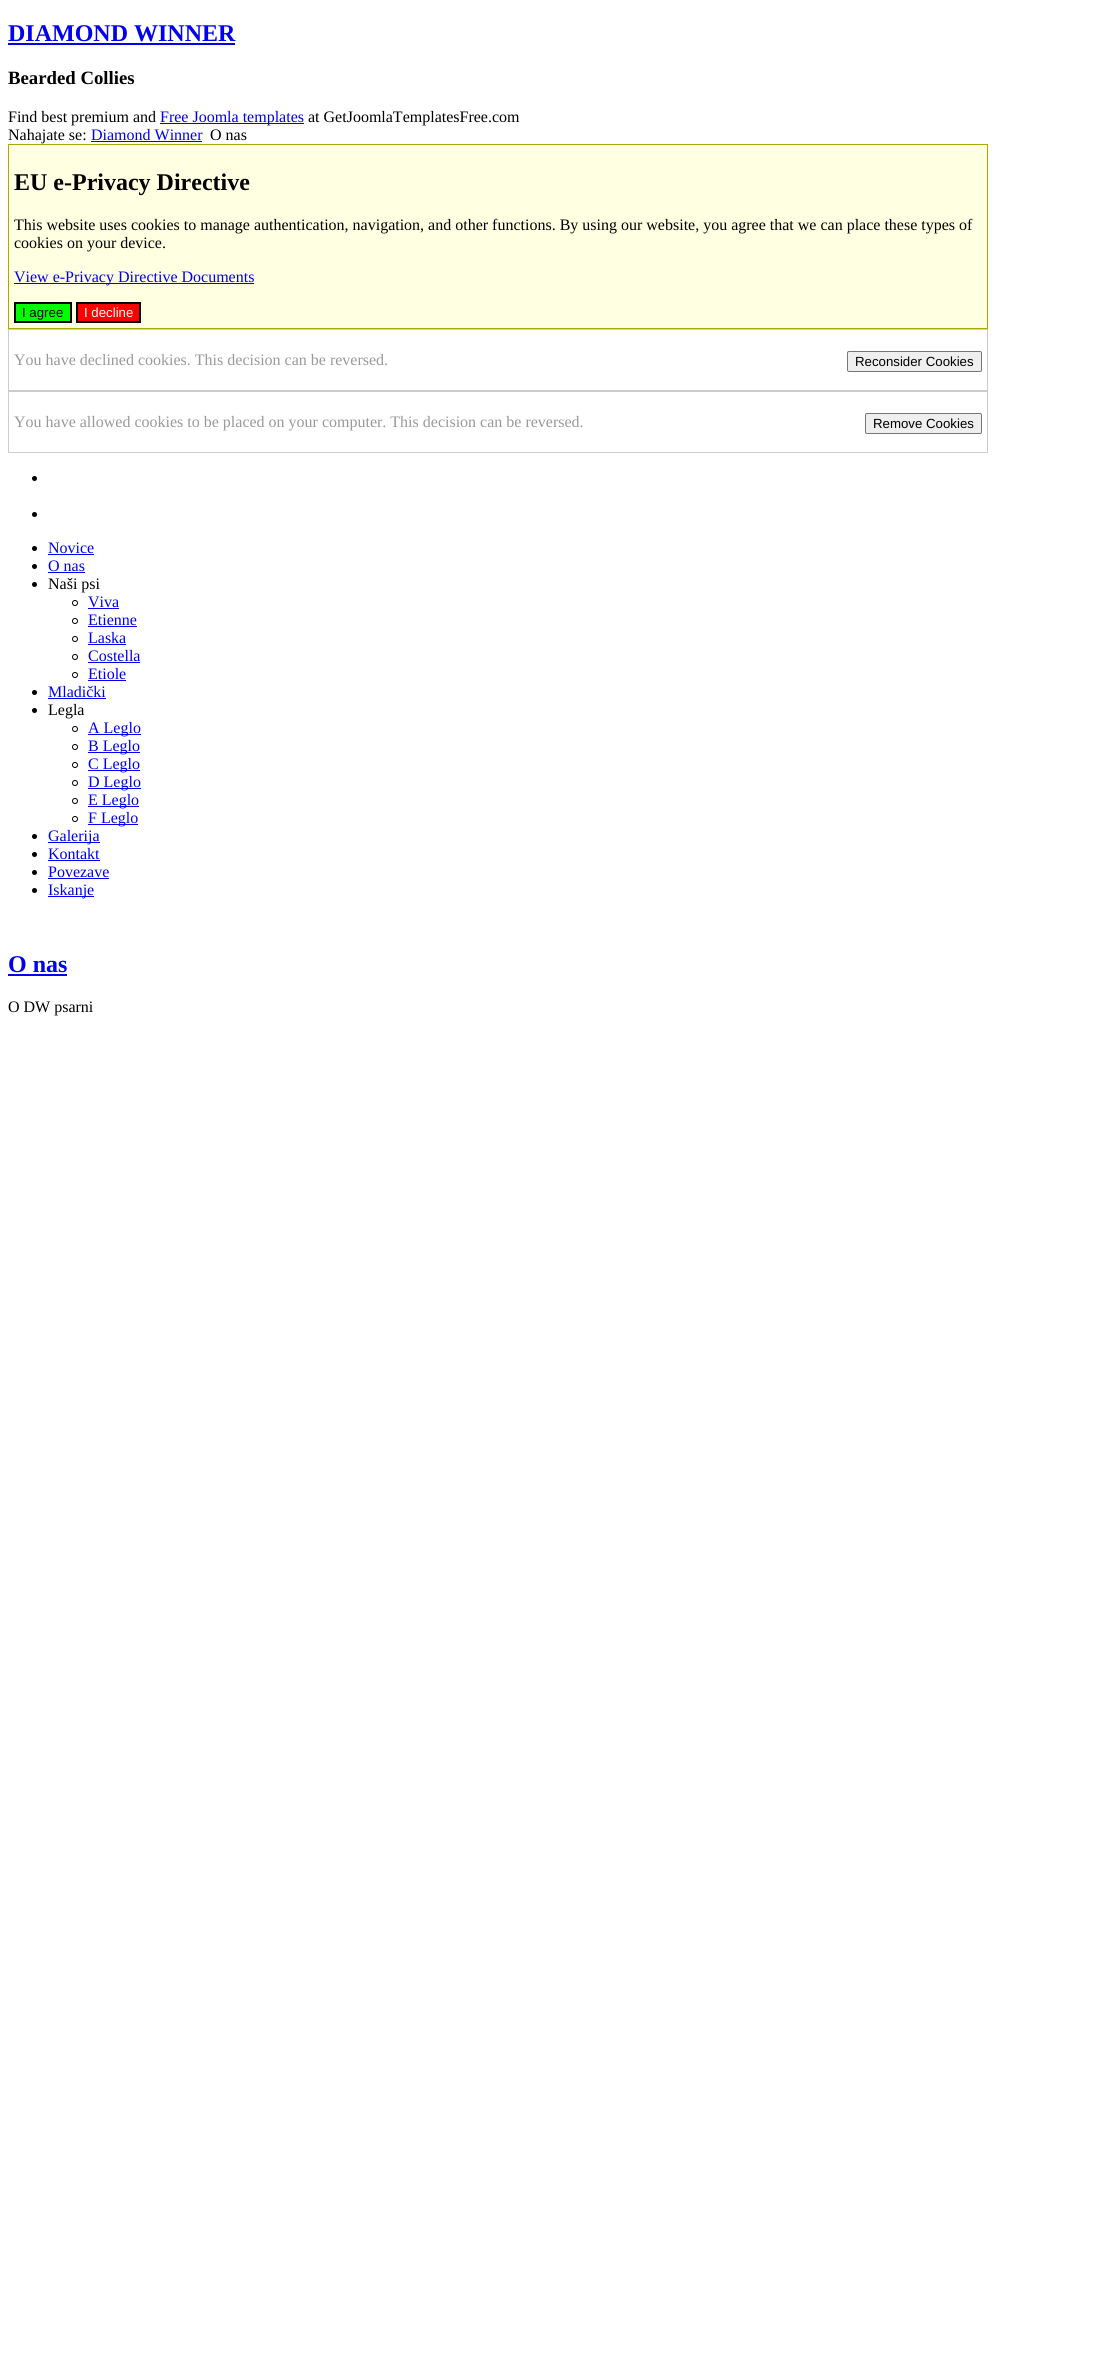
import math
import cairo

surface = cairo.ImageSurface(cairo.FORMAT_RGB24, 1108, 2373)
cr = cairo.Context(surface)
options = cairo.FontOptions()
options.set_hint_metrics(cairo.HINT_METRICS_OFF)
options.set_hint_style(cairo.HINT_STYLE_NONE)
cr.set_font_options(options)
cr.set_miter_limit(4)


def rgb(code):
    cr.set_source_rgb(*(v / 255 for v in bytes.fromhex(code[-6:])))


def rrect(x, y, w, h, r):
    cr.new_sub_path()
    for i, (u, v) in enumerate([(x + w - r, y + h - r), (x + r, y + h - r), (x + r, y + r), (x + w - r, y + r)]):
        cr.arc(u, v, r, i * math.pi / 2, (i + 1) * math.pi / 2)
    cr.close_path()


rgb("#ffffff")
cr.paint()
for x, y, w, h, color in [
    (8, 43, 227, 2, "#0000ee"),
    (160, 123, 144, 1, "#0000ee"),
    (91, 141, 111, 1, "#0000ee"),
]:
    rgb(color)
    cr.rectangle(x, y, w, h)
    cr.fill()
rgb("#ffffe1")
cr.rectangle(8.5, 144.5, 979, 184)
cr.fill_preserve()
rgb("#a9a900")
cr.set_line_width(1)
cr.stroke()
rgb("#0000ee")
cr.rectangle(14, 283, 240, 1)
cr.fill()
rgb("#00ff00")
cr.rectangle(15, 303, 56, 19)
cr.fill_preserve()
rgb("#000000")
cr.set_line_width(2)
cr.stroke()
rgb("#ff0000")
cr.rectangle(77, 303, 63, 19)
cr.fill_preserve()
rgb("#000000")
cr.stroke()
cr.rectangle(8.5, 329.5, 979, 61)
rgb("#cccccc")
cr.set_line_width(1)
cr.stroke()
rgb("#efefef")
rrect(847.5, 351.5, 134, 20, 1.5)
cr.fill_preserve()
rgb("#767676")
cr.stroke()
cr.rectangle(8.5, 391.5, 979, 61)
rgb("#cccccc")
cr.stroke()
rgb("#efefef")
rrect(865.5, 413.5, 116, 20, 1.5)
cr.fill_preserve()
rgb("#767676")
cr.stroke()
rgb("#000000")
cr.arc(34.5, 478.5, 2.5, 0, 2 * math.pi)
cr.fill()
cr.arc(34.5, 514.5, 2.5, 0, 2 * math.pi)
cr.fill()
cr.arc(34.5, 548.5, 2.5, 0, 2 * math.pi)
cr.fill()
rgb("#0000ee")
cr.rectangle(48, 554, 46, 1)
cr.fill()
rgb("#000000")
cr.arc(34.5, 566.5, 2.5, 0, 2 * math.pi)
cr.fill()
rgb("#0000ee")
cr.rectangle(48, 572, 37, 1)
cr.fill()
rgb("#000000")
cr.arc(34.5, 584.5, 2.5, 0, 2 * math.pi)
cr.fill()
cr.arc(75, 603, 2.5, 0, 2 * math.pi)
cr.stroke()
rgb("#0000ee")
cr.rectangle(88, 608, 31, 1)
cr.fill()
cr.arc(75, 621, 2.5, 0, 2 * math.pi)
rgb("#000000")
cr.stroke()
rgb("#0000ee")
cr.rectangle(88, 626, 49, 1)
cr.fill()
cr.arc(75, 639, 2.5, 0, 2 * math.pi)
rgb("#000000")
cr.stroke()
rgb("#0000ee")
cr.rectangle(88, 644, 38, 1)
cr.fill()
cr.arc(75, 657, 2.5, 0, 2 * math.pi)
rgb("#000000")
cr.stroke()
rgb("#0000ee")
cr.rectangle(88, 662, 52, 1)
cr.fill()
cr.arc(75, 675, 2.5, 0, 2 * math.pi)
rgb("#000000")
cr.stroke()
rgb("#0000ee")
cr.rectangle(88, 680, 38, 1)
cr.fill()
rgb("#000000")
cr.arc(34.5, 692.5, 2.5, 0, 2 * math.pi)
cr.fill()
rgb("#0000ee")
cr.rectangle(48, 698, 58, 1)
cr.fill()
rgb("#000000")
cr.arc(34.5, 710.5, 2.5, 0, 2 * math.pi)
cr.fill()
cr.arc(75, 729, 2.5, 0, 2 * math.pi)
cr.stroke()
rgb("#0000ee")
cr.rectangle(88, 734, 53, 1)
cr.fill()
cr.arc(75, 747, 2.5, 0, 2 * math.pi)
rgb("#000000")
cr.stroke()
rgb("#0000ee")
cr.rectangle(88, 752, 52, 1)
cr.fill()
cr.arc(75, 765, 2.5, 0, 2 * math.pi)
rgb("#000000")
cr.stroke()
rgb("#0000ee")
cr.rectangle(88, 770, 52, 1)
cr.fill()
cr.arc(75, 783, 2.5, 0, 2 * math.pi)
rgb("#000000")
cr.stroke()
rgb("#0000ee")
cr.rectangle(88, 788, 53, 1)
cr.fill()
cr.arc(75, 801, 2.5, 0, 2 * math.pi)
rgb("#000000")
cr.stroke()
rgb("#0000ee")
cr.rectangle(88, 806, 51, 1)
cr.fill()
cr.arc(75, 819, 2.5, 0, 2 * math.pi)
rgb("#000000")
cr.stroke()
rgb("#0000ee")
cr.rectangle(88, 824, 50, 1)
cr.fill()
rgb("#000000")
cr.arc(34.5, 836.5, 2.5, 0, 2 * math.pi)
cr.fill()
rgb("#0000ee")
cr.rectangle(48, 842, 52, 1)
cr.fill()
rgb("#000000")
cr.arc(34.5, 854.5, 2.5, 0, 2 * math.pi)
cr.fill()
rgb("#0000ee")
cr.rectangle(48, 860, 52, 1)
cr.fill()
rgb("#000000")
cr.arc(34.5, 872.5, 2.5, 0, 2 * math.pi)
cr.fill()
rgb("#0000ee")
cr.rectangle(48, 878, 61, 1)
cr.fill()
rgb("#000000")
cr.arc(34.5, 890.5, 2.5, 0, 2 * math.pi)
cr.fill()
rgb("#0000ee")
cr.rectangle(48, 896, 46, 1)
cr.fill()
cr.rectangle(8, 974, 59, 2)
cr.fill()
cr.select_font_face("Liberation Serif", cairo.FONT_SLANT_NORMAL, cairo.FONT_WEIGHT_BOLD)
cr.set_font_size(24)
cr.move_to(8, 41)
cr.show_text("DIAMOND WINNER")
cr.set_font_size(18.75)
rgb("#000000")
cr.move_to(8, 84)
cr.show_text("Bearded Collies")
cr.select_font_face("Liberation Serif")
cr.set_font_size(16)
cr.move_to(8, 122)
cr.show_text("Find best premium and")
rgb("#0000ee")
cr.move_to(160, 122)
cr.show_text("Free Joomla templates")
rgb("#000000")
cr.move_to(308, 122)
cr.show_text("at GetJoomlaTemplatesFree.com")
cr.move_to(8, 140)
cr.show_text("Nahajate se:")
rgb("#0000ee")
cr.move_to(91, 140)
cr.show_text("Diamond Winner")
rgb("#000000")
cr.move_to(210, 140)
cr.show_text("O nas")
cr.select_font_face("Liberation Serif", cairo.FONT_SLANT_NORMAL, cairo.FONT_WEIGHT_BOLD)
cr.set_font_size(24)
cr.move_to(14, 190)
cr.show_text("EU e-Privacy Directive")
cr.select_font_face("Liberation Serif")
cr.set_font_size(16)
cr.move_to(14, 230)
cr.show_text("This website uses cookies to manage authentication, navigation, and other functions. By using our website, you agree that we can place these types of")
cr.move_to(14, 248)
cr.show_text("cookies on your device.")
rgb("#0000ee")
cr.move_to(14, 282)
cr.show_text("View e-Privacy Directive Documents")
cr.select_font_face("Liberation Sans")
cr.set_font_size(13.25)
rgb("#000000")
cr.move_to(22, 317)
cr.show_text("I agree")
rgb("#ffffff")
cr.move_to(84, 317)
cr.show_text("I decline")
cr.select_font_face("Liberation Serif")
cr.set_font_size(16)
rgb("#999999")
cr.move_to(14, 365)
cr.show_text("You have declined cookies. This decision can be reversed.")
cr.select_font_face("Liberation Sans")
cr.set_font_size(13.25)
rgb("#000000")
cr.move_to(855, 366)
cr.show_text("Reconsider Cookies")
cr.select_font_face("Liberation Serif")
cr.set_font_size(16)
rgb("#999999")
cr.move_to(14, 427)
cr.show_text("You have allowed cookies to be placed on your computer. This decision can be reversed.")
cr.select_font_face("Liberation Sans")
cr.set_font_size(13.25)
rgb("#000000")
cr.move_to(873, 428)
cr.show_text("Remove Cookies")
cr.select_font_face("Liberation Serif")
cr.set_font_size(16)
rgb("#0000ee")
cr.move_to(48, 553)
cr.show_text("Novice")
cr.move_to(48, 571)
cr.show_text("O nas")
rgb("#000000")
cr.move_to(48, 589)
cr.show_text("Naši psi")
rgb("#0000ee")
for x, y, s in [
    (88, 607, "Viva"),
    (88, 625, "Etienne"),
    (88, 643, "Laska"),
    (88, 661, "Costella"),
    (88, 679, "Etiole"),
    (48, 697, "Mladički"),
]:
    cr.move_to(x, y)
    cr.show_text(s)
rgb("#000000")
cr.move_to(48, 715)
cr.show_text("Legla")
rgb("#0000ee")
for x, y, s in [
    (88, 733, "A Leglo"),
    (88, 751, "B Leglo"),
    (88, 769, "C Leglo"),
    (88, 787, "D Leglo"),
    (88, 805, "E Leglo"),
    (88, 823, "F Leglo"),
    (48, 841, "Galerija"),
    (48, 859, "Kontakt"),
    (48, 877, "Povezave"),
    (48, 895, "Iskanje"),
]:
    cr.move_to(x, y)
    cr.show_text(s)
cr.select_font_face("Liberation Serif", cairo.FONT_SLANT_NORMAL, cairo.FONT_WEIGHT_BOLD)
cr.set_font_size(24)
cr.move_to(8, 972)
cr.show_text("O nas")
cr.select_font_face("Liberation Serif")
cr.set_font_size(16)
rgb("#000000")
cr.move_to(8, 1012)
cr.show_text("O DW psarni")
surface.write_to_png("page.png")
